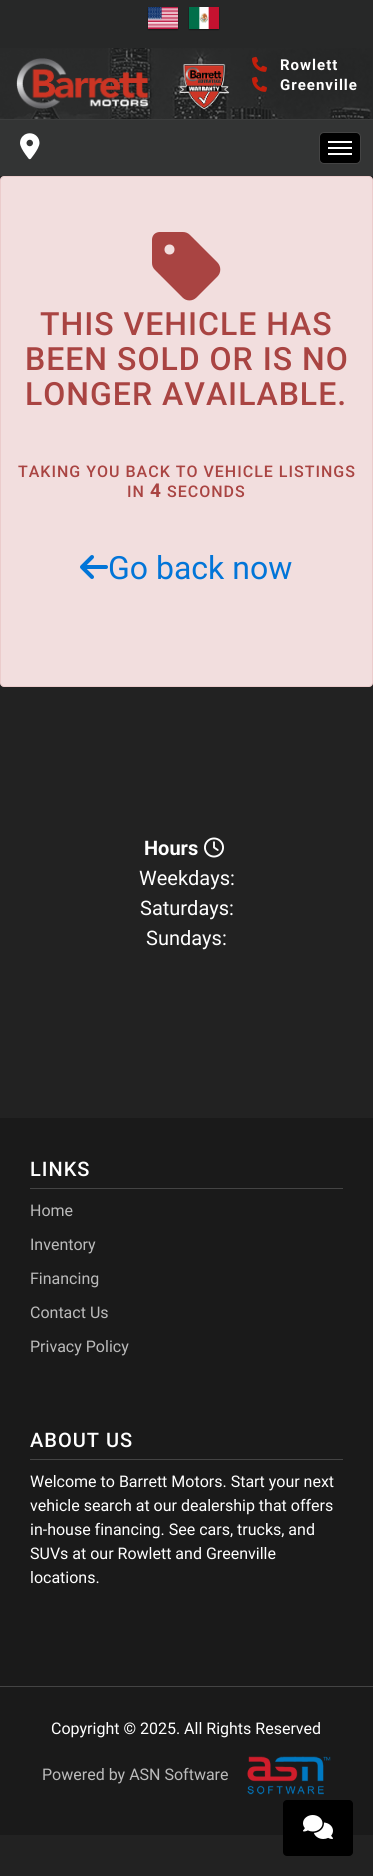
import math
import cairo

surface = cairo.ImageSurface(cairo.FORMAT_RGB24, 373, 1876)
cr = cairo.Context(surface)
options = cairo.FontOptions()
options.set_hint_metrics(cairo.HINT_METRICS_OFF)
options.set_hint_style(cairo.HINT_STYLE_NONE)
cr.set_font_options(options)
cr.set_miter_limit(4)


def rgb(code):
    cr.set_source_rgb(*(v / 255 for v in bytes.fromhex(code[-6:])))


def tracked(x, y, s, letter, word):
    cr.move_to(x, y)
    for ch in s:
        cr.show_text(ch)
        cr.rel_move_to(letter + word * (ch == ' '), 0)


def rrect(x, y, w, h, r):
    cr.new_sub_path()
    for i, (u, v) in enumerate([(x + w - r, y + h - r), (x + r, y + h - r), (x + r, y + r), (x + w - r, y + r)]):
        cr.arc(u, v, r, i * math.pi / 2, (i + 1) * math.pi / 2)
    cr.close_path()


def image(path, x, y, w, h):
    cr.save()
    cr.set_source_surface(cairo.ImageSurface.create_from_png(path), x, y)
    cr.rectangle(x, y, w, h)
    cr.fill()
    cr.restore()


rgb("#222222")
cr.paint()
rgb("#272828")
cr.rectangle(0, 0, 373, 119)
cr.fill()
rgb("#3c3d3d")
cr.rectangle(0, 119, 373, 1)
cr.fill()
image("img/1.png", 147, 7, 32, 24)
image("img/2.png", 188, 7, 32, 24)
image("img/3.png", 0, 48, 372, 71)
image("img/4.png", 16, 58, 133, 51)
image("img/5.png", 178, 64, 52, 47)
image("img/6.png", 252, 56, 15, 16)
image("img/7.png", 252, 76, 15, 16)
rgb("#333434")
cr.rectangle(0, 120, 373, 56)
cr.fill()
rgb("#000000")
rrect(319.5, 132.5, 41, 31, 4.5)
cr.fill_preserve()
rgb("#444444")
cr.set_line_width(1)
cr.stroke()
for x, y, w, h, color in [
    (328, 141, 24, 2, "#ffffff"),
    (328, 147, 24, 2, "#ffffff"),
    (328, 153, 24, 2, "#ffffff"),
]:
    rgb(color)
    cr.rectangle(x, y, w, h)
    cr.fill()
image("img/8.png", 20, 133, 20, 27)
rgb("#f2dede")
rrect(0.5, 176.5, 372, 510, 3.5)
cr.fill_preserve()
rgb("#ebcccc")
cr.stroke()
image("img/9.png", 152, 232, 69, 69)
image("img/10.png", 80, 555, 28, 24)
image("img/11.png", 204, 837, 20, 21)
for x, y, w, h, color in [
    (0, 1118, 373, 717, "#1a1a1a"),
    (30, 1188, 313, 1, "#444444"),
    (30, 1459, 313, 1, "#444444"),
    (0, 1686, 373, 1, "#444444"),
]:
    rgb(color)
    cr.rectangle(x, y, w, h)
    cr.fill()
image("img/12.png", 247, 1756, 84, 39)
rgb("#000000")
rrect(283, 1800, 70, 56, 4)
cr.fill()
image("img/13.png", 303, 1815, 30, 24)
cr.select_font_face("Roboto", cairo.FONT_SLANT_NORMAL, cairo.FONT_WEIGHT_BOLD)
cr.set_font_size(15)
rgb("#ffffff")
tracked(280, 70, "Rowlett", 1, 0)
tracked(280, 90, "Greenville", 1, 0)
cr.select_font_face("Roboto Medium")
cr.set_font_size(32)
rgb("#a94442")
for x, y, s in [
    (40, 335, "THIS VEHICLE HAS"),
    (25, 370, "BEEN SOLD OR IS NO"),
    (25, 405, "LONGER AVAILABLE."),
]:
    tracked(x, y, s, 1, 0)
cr.set_font_size(16)
tracked(18, 477, "TAKING YOU BACK TO VEHICLE LISTINGS", 1, 0)
tracked(127, 497, "IN", 1, 0)
cr.select_font_face("Roboto", cairo.FONT_SLANT_NORMAL, cairo.FONT_WEIGHT_BOLD)
cr.set_font_size(19)
tracked(150, 497, "4", 1, 0)
cr.select_font_face("Roboto Medium")
cr.set_font_size(16)
tracked(167, 497, "SECONDS", 1, 0)
cr.select_font_face("Roboto")
cr.set_font_size(32)
rgb("#0275d8")
cr.move_to(108, 579)
cr.show_text("Go back now")
cr.select_font_face("Roboto", cairo.FONT_SLANT_NORMAL, cairo.FONT_WEIGHT_BOLD)
cr.set_font_size(20)
rgb("#ffffff")
cr.move_to(144, 855)
cr.show_text("Hours")
cr.select_font_face("Roboto")
for x, y, s in [
    (139, 885, "Weekdays:"),
    (140, 915, "Saturdays:"),
    (146, 945, "Sundays:"),
]:
    cr.move_to(x, y)
    cr.show_text(s)
cr.select_font_face("Roboto Medium")
tracked(30, 1176, "LINKS", 1, 0)
cr.select_font_face("Roboto")
cr.set_font_size(16)
rgb("#bbbbbb")
for x, y, s in [
    (30, 1216, "Home"),
    (30, 1250, "Inventory"),
    (30, 1284, "Financing"),
    (30, 1318, "Contact Us"),
    (30, 1352, "Privacy Policy"),
]:
    cr.move_to(x, y)
    cr.show_text(s)
cr.select_font_face("Roboto Medium")
cr.set_font_size(20)
rgb("#ffffff")
tracked(30, 1447, "ABOUT US", 1, 0)
cr.select_font_face("Roboto")
cr.set_font_size(16)
for x, y, s in [
    (30, 1487, "Welcome to Barrett Motors. Start your next"),
    (30, 1511, "vehicle search at our dealership that offers"),
    (30, 1535, "in-house financing. See cars, trucks, and"),
    (30, 1559, "SUVs at our Rowlett and Greenville"),
    (30, 1583, "locations."),
    (51, 1734, "Copyright © 2025. All Rights Reserved"),
]:
    cr.move_to(x, y)
    cr.show_text(s)
rgb("#bbbbbb")
cr.move_to(42, 1780)
cr.show_text("Powered by ASN Software")
surface.write_to_png("page.png")
